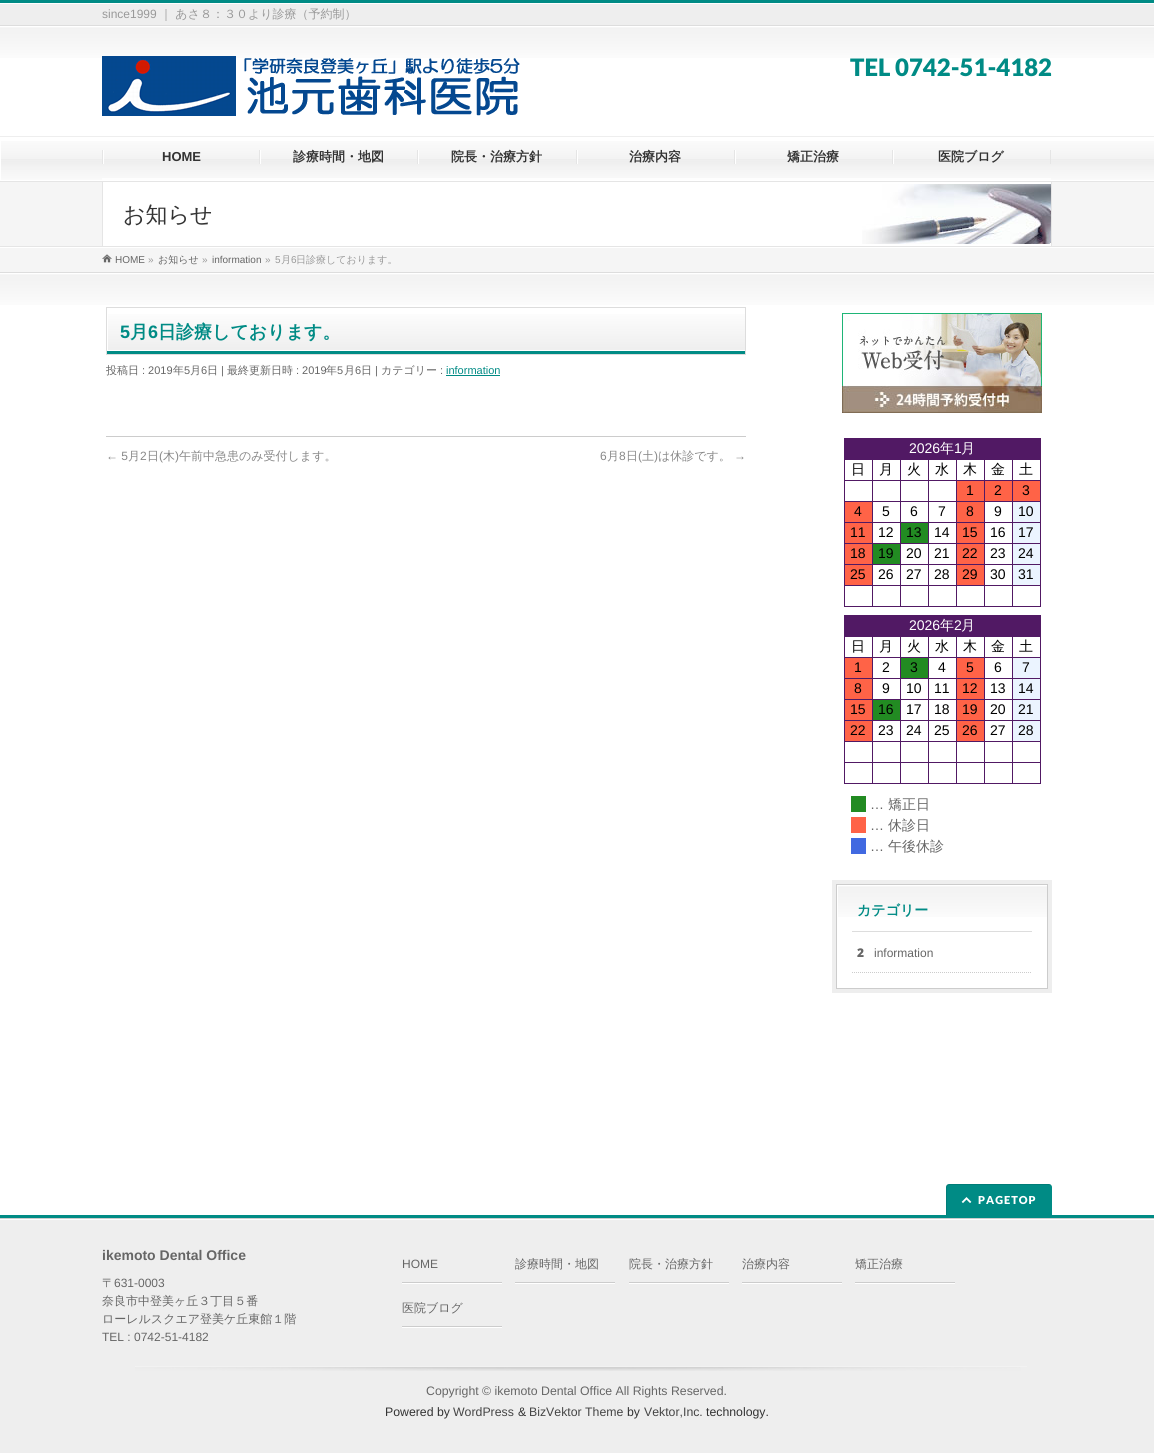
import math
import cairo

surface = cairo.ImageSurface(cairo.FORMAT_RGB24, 1154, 1454)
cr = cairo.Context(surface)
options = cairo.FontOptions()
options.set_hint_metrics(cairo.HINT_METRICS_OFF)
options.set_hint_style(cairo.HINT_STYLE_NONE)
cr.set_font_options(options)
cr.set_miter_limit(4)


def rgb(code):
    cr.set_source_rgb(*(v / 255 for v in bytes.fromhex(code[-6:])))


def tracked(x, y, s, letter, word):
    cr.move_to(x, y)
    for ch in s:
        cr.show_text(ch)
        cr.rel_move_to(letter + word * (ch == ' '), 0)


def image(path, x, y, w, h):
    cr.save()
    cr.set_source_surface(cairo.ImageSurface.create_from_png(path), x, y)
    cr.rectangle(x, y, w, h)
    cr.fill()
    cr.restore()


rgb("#ffffff")
cr.paint()
for x, y, w, h, color in [
    (0, 4, 1154, 21, "#eeeeee"),
    (0, 0, 1154, 3, "#008b85"),
    (0, 25, 1154, 1, "#dddddd"),
]:
    rgb(color)
    cr.rectangle(x, y, w, h)
    cr.fill()
image("img/1.png", 0, 27, 1154, 31)
image("img/2.png", 102, 56, 418, 60)
image("img/3.png", 1, 141, 1153, 39)
for x, y, w, h, color in [
    (0, 136, 1154, 1, "#eeeeee"),
    (102, 178, 949, 2, "#fefefe"),
    (103, 150, 1, 14, "#ffffff"),
    (259, 150, 1, 14, "#e5e5e5"),
    (102, 150, 1, 14, "#e5e5e5"),
    (260, 150, 1, 14, "#ffffff"),
    (417, 150, 1, 14, "#e5e5e5"),
    (418, 150, 1, 14, "#ffffff"),
    (576, 150, 1, 14, "#e5e5e5"),
    (577, 150, 1, 14, "#ffffff"),
    (734, 150, 1, 14, "#e5e5e5"),
    (735, 150, 1, 14, "#ffffff"),
    (892, 150, 1, 14, "#e5e5e5"),
    (893, 150, 1, 14, "#ffffff"),
    (1050, 150, 1, 14, "#e5e5e5"),
    (0, 182, 1154, 64, "#f5f5f5"),
    (0, 181, 1154, 1, "#e5e5e5"),
    (0, 246, 1154, 1, "#e5e5e5"),
    (103, 182, 948, 64, "#ffffff"),
]:
    rgb(color)
    cr.rectangle(x, y, w, h)
    cr.fill()
image("img/4.png", 862, 184, 189, 60)
for x, y, w, h, color in [
    (1051, 182, 1, 64, "#e5e5e5"),
    (102, 182, 1, 64, "#e5e5e5"),
    (0, 248, 1154, 24, "#f5f5f5"),
    (0, 272, 1154, 1, "#dddddd"),
]:
    rgb(color)
    cr.rectangle(x, y, w, h)
    cr.fill()
image("img/5.png", 102, 254, 10, 9)
image("img/1.png", 0, 274, 1154, 31)
gradient = cairo.LinearGradient(426, 308, 426, 354)
gradient.add_color_stop_rgba(0, 1, 1, 1, 1)
gradient.add_color_stop_rgba(0.47, 0.965, 0.965, 0.965, 1)
gradient.add_color_stop_rgba(1, 0.929, 0.929, 0.929, 1)
cr.set_source(gradient)
cr.rectangle(108, 314, 637, 36)
cr.fill()
cr.rectangle(106.5, 307.5, 639, 47)
rgb("#dddddd")
cr.set_line_width(1)
cr.stroke()
for x, y, w, h, color in [
    (107, 351, 638, 3, "#008b85"),
    (446, 375, 54, 1, "#008b85"),
    (106, 436, 640, 1, "#cccccc"),
]:
    rgb(color)
    cr.rectangle(x, y, w, h)
    cr.fill()
image("img/6.png", 842, 313, 200, 100)
for x, y, w, h, color in [
    (844, 439, 196, 20, "#511964"),
    (844, 438, 197, 1, "#511964"),
    (1012, 459, 29, 1, "#511964"),
    (1012, 480, 29, 1, "#511964"),
    (1012, 501, 29, 1, "#511964"),
    (1012, 522, 29, 1, "#511964"),
    (1012, 543, 29, 1, "#511964"),
    (1012, 564, 29, 1, "#511964"),
    (1012, 585, 29, 1, "#511964"),
    (1040, 585, 1, 22, "#511964"),
    (1040, 564, 1, 22, "#511964"),
    (1040, 543, 1, 22, "#511964"),
    (1040, 522, 1, 22, "#511964"),
    (1040, 501, 1, 22, "#511964"),
    (1040, 480, 1, 22, "#511964"),
    (1040, 459, 1, 22, "#511964"),
    (1040, 438, 1, 22, "#511964"),
    (1012, 606, 29, 1, "#511964"),
    (1012, 585, 1, 22, "#511964"),
    (984, 585, 29, 1, "#511964"),
    (1012, 564, 1, 22, "#511964"),
    (984, 564, 29, 1, "#511964"),
    (1012, 543, 1, 22, "#511964"),
    (984, 543, 29, 1, "#511964"),
    (1012, 522, 1, 22, "#511964"),
    (984, 522, 29, 1, "#511964"),
    (1012, 501, 1, 22, "#511964"),
    (984, 501, 29, 1, "#511964"),
    (1012, 480, 1, 22, "#511964"),
    (984, 480, 29, 1, "#511964"),
    (1012, 459, 1, 22, "#511964"),
    (984, 459, 29, 1, "#511964"),
    (984, 606, 29, 1, "#511964"),
    (984, 585, 1, 22, "#511964"),
    (956, 585, 29, 1, "#511964"),
    (984, 564, 1, 22, "#511964"),
    (956, 564, 29, 1, "#511964"),
    (984, 543, 1, 22, "#511964"),
    (956, 543, 29, 1, "#511964"),
    (984, 522, 1, 22, "#511964"),
    (956, 522, 29, 1, "#511964"),
    (984, 501, 1, 22, "#511964"),
    (956, 501, 29, 1, "#511964"),
    (984, 480, 1, 22, "#511964"),
    (956, 480, 29, 1, "#511964"),
    (984, 459, 1, 22, "#511964"),
    (956, 459, 29, 1, "#511964"),
    (956, 606, 29, 1, "#511964"),
    (956, 585, 1, 22, "#511964"),
    (928, 585, 29, 1, "#511964"),
    (956, 564, 1, 22, "#511964"),
    (928, 564, 29, 1, "#511964"),
    (956, 543, 1, 22, "#511964"),
    (928, 543, 29, 1, "#511964"),
    (956, 522, 1, 22, "#511964"),
    (928, 522, 29, 1, "#511964"),
    (956, 501, 1, 22, "#511964"),
    (928, 501, 29, 1, "#511964"),
    (956, 480, 1, 22, "#511964"),
    (928, 480, 29, 1, "#511964"),
    (956, 459, 1, 22, "#511964"),
    (928, 459, 29, 1, "#511964"),
    (928, 606, 29, 1, "#511964"),
    (928, 585, 1, 22, "#511964"),
    (900, 585, 29, 1, "#511964"),
    (928, 564, 1, 22, "#511964"),
    (900, 564, 29, 1, "#511964"),
    (928, 543, 1, 22, "#511964"),
    (900, 543, 29, 1, "#511964"),
    (928, 522, 1, 22, "#511964"),
    (900, 522, 29, 1, "#511964"),
    (928, 501, 1, 22, "#511964"),
    (900, 501, 29, 1, "#511964"),
    (928, 480, 1, 22, "#511964"),
    (900, 480, 29, 1, "#511964"),
    (928, 459, 1, 22, "#511964"),
    (900, 459, 29, 1, "#511964"),
    (900, 606, 29, 1, "#511964"),
    (900, 585, 1, 22, "#511964"),
    (872, 585, 29, 1, "#511964"),
    (900, 564, 1, 22, "#511964"),
    (872, 564, 29, 1, "#511964"),
    (900, 543, 1, 22, "#511964"),
    (872, 543, 29, 1, "#511964"),
    (900, 522, 1, 22, "#511964"),
    (872, 522, 29, 1, "#511964"),
    (900, 501, 1, 22, "#511964"),
    (872, 501, 29, 1, "#511964"),
    (900, 480, 1, 22, "#511964"),
    (872, 480, 29, 1, "#511964"),
    (900, 459, 1, 22, "#511964"),
    (872, 459, 29, 1, "#511964"),
    (872, 606, 29, 1, "#511964"),
    (872, 585, 1, 22, "#511964"),
    (844, 585, 29, 1, "#511964"),
    (872, 564, 1, 22, "#511964"),
    (844, 564, 29, 1, "#511964"),
    (872, 543, 1, 22, "#511964"),
    (844, 543, 29, 1, "#511964"),
    (872, 522, 1, 22, "#511964"),
    (844, 522, 29, 1, "#511964"),
    (872, 501, 1, 22, "#511964"),
    (844, 501, 29, 1, "#511964"),
    (872, 480, 1, 22, "#511964"),
    (844, 480, 29, 1, "#511964"),
    (872, 459, 1, 22, "#511964"),
    (844, 459, 29, 1, "#511964"),
    (844, 606, 29, 1, "#511964"),
    (844, 585, 1, 22, "#511964"),
    (844, 564, 1, 22, "#511964"),
    (844, 543, 1, 22, "#511964"),
    (844, 522, 1, 22, "#511964"),
    (844, 501, 1, 22, "#511964"),
    (844, 480, 1, 22, "#511964"),
    (844, 459, 1, 22, "#511964"),
    (957, 481, 27, 20, "#ff6347"),
    (985, 481, 27, 20, "#ff6347"),
    (1013, 481, 27, 20, "#ff6347"),
    (845, 502, 27, 20, "#ff6347"),
    (957, 502, 27, 20, "#ff6347"),
    (1013, 502, 27, 20, "#ebf4ff"),
    (845, 523, 27, 20, "#ff6347"),
    (901, 523, 27, 20, "#228b22"),
    (957, 523, 27, 20, "#ff6347"),
    (1013, 523, 27, 20, "#ebf4ff"),
    (845, 544, 27, 20, "#ff6347"),
    (873, 544, 27, 20, "#228b22"),
    (957, 544, 27, 20, "#ff6347"),
    (1013, 544, 27, 20, "#ebf4ff"),
    (845, 565, 27, 20, "#ff6347"),
    (957, 565, 27, 20, "#ff6347"),
    (1013, 565, 27, 20, "#ebf4ff"),
    (844, 616, 196, 20, "#511964"),
    (844, 615, 197, 1, "#511964"),
    (1012, 636, 29, 1, "#511964"),
    (1012, 657, 29, 1, "#511964"),
    (1012, 678, 29, 1, "#511964"),
    (1012, 699, 29, 1, "#511964"),
    (1012, 720, 29, 1, "#511964"),
    (1012, 741, 29, 1, "#511964"),
    (1012, 762, 29, 1, "#511964"),
    (1040, 762, 1, 22, "#511964"),
    (1040, 741, 1, 22, "#511964"),
    (1040, 720, 1, 22, "#511964"),
    (1040, 699, 1, 22, "#511964"),
    (1040, 678, 1, 22, "#511964"),
    (1040, 657, 1, 22, "#511964"),
    (1040, 636, 1, 22, "#511964"),
    (1040, 615, 1, 22, "#511964"),
    (1012, 783, 29, 1, "#511964"),
    (1012, 762, 1, 22, "#511964"),
    (984, 762, 29, 1, "#511964"),
    (1012, 741, 1, 22, "#511964"),
    (984, 741, 29, 1, "#511964"),
    (1012, 720, 1, 22, "#511964"),
    (984, 720, 29, 1, "#511964"),
    (1012, 699, 1, 22, "#511964"),
    (984, 699, 29, 1, "#511964"),
    (1012, 678, 1, 22, "#511964"),
    (984, 678, 29, 1, "#511964"),
    (1012, 657, 1, 22, "#511964"),
    (984, 657, 29, 1, "#511964"),
    (1012, 636, 1, 22, "#511964"),
    (984, 636, 29, 1, "#511964"),
    (984, 783, 29, 1, "#511964"),
    (984, 762, 1, 22, "#511964"),
    (956, 762, 29, 1, "#511964"),
    (984, 741, 1, 22, "#511964"),
    (956, 741, 29, 1, "#511964"),
    (984, 720, 1, 22, "#511964"),
    (956, 720, 29, 1, "#511964"),
    (984, 699, 1, 22, "#511964"),
    (956, 699, 29, 1, "#511964"),
    (984, 678, 1, 22, "#511964"),
    (956, 678, 29, 1, "#511964"),
    (984, 657, 1, 22, "#511964"),
    (956, 657, 29, 1, "#511964"),
    (984, 636, 1, 22, "#511964"),
    (956, 636, 29, 1, "#511964"),
    (956, 783, 29, 1, "#511964"),
    (956, 762, 1, 22, "#511964"),
    (928, 762, 29, 1, "#511964"),
    (956, 741, 1, 22, "#511964"),
    (928, 741, 29, 1, "#511964"),
    (956, 720, 1, 22, "#511964"),
    (928, 720, 29, 1, "#511964"),
    (956, 699, 1, 22, "#511964"),
    (928, 699, 29, 1, "#511964"),
    (956, 678, 1, 22, "#511964"),
    (928, 678, 29, 1, "#511964"),
    (956, 657, 1, 22, "#511964"),
    (928, 657, 29, 1, "#511964"),
    (956, 636, 1, 22, "#511964"),
    (928, 636, 29, 1, "#511964"),
    (928, 783, 29, 1, "#511964"),
    (928, 762, 1, 22, "#511964"),
    (900, 762, 29, 1, "#511964"),
    (928, 741, 1, 22, "#511964"),
    (900, 741, 29, 1, "#511964"),
    (928, 720, 1, 22, "#511964"),
    (900, 720, 29, 1, "#511964"),
    (928, 699, 1, 22, "#511964"),
    (900, 699, 29, 1, "#511964"),
    (928, 678, 1, 22, "#511964"),
    (900, 678, 29, 1, "#511964"),
    (928, 657, 1, 22, "#511964"),
    (900, 657, 29, 1, "#511964"),
    (928, 636, 1, 22, "#511964"),
    (900, 636, 29, 1, "#511964"),
    (900, 783, 29, 1, "#511964"),
    (900, 762, 1, 22, "#511964"),
    (872, 762, 29, 1, "#511964"),
    (900, 741, 1, 22, "#511964"),
    (872, 741, 29, 1, "#511964"),
    (900, 720, 1, 22, "#511964"),
    (872, 720, 29, 1, "#511964"),
    (900, 699, 1, 22, "#511964"),
    (872, 699, 29, 1, "#511964"),
    (900, 678, 1, 22, "#511964"),
    (872, 678, 29, 1, "#511964"),
    (900, 657, 1, 22, "#511964"),
    (872, 657, 29, 1, "#511964"),
    (900, 636, 1, 22, "#511964"),
    (872, 636, 29, 1, "#511964"),
    (872, 783, 29, 1, "#511964"),
    (872, 762, 1, 22, "#511964"),
    (844, 762, 29, 1, "#511964"),
    (872, 741, 1, 22, "#511964"),
    (844, 741, 29, 1, "#511964"),
    (872, 720, 1, 22, "#511964"),
    (844, 720, 29, 1, "#511964"),
    (872, 699, 1, 22, "#511964"),
    (844, 699, 29, 1, "#511964"),
    (872, 678, 1, 22, "#511964"),
    (844, 678, 29, 1, "#511964"),
    (872, 657, 1, 22, "#511964"),
    (844, 657, 29, 1, "#511964"),
    (872, 636, 1, 22, "#511964"),
    (844, 636, 29, 1, "#511964"),
    (844, 783, 29, 1, "#511964"),
    (844, 762, 1, 22, "#511964"),
    (844, 741, 1, 22, "#511964"),
    (844, 720, 1, 22, "#511964"),
    (844, 699, 1, 22, "#511964"),
    (844, 678, 1, 22, "#511964"),
    (844, 657, 1, 22, "#511964"),
    (844, 636, 1, 22, "#511964"),
    (845, 658, 27, 20, "#ff6347"),
    (901, 658, 27, 20, "#228b22"),
    (957, 658, 27, 20, "#ff6347"),
    (1013, 658, 27, 20, "#ebf4ff"),
    (845, 679, 27, 20, "#ff6347"),
    (957, 679, 27, 20, "#ff6347"),
    (1013, 679, 27, 20, "#ebf4ff"),
    (845, 700, 27, 20, "#ff6347"),
    (873, 700, 27, 20, "#228b22"),
    (957, 700, 27, 20, "#ff6347"),
    (1013, 700, 27, 20, "#ebf4ff"),
    (845, 721, 27, 20, "#ff6347"),
    (957, 721, 27, 20, "#ff6347"),
    (1013, 721, 27, 20, "#ebf4ff"),
    (851, 796, 15, 16, "#228b22"),
    (851, 817, 15, 16, "#ff6347"),
    (851, 838, 15, 16, "#4169e1"),
]:
    rgb(color)
    cr.rectangle(x, y, w, h)
    cr.fill()
image("img/7.png", 838, 886, 209, 31)
cr.rectangle(836.5, 884.5, 211, 104)
rgb("#cccccc")
cr.stroke()
cr.new_path()
cr.move_to(852, 972.5)
cr.line_to(1032, 972.5)
cr.set_dash([1, 1])
cr.stroke()
cr.rectangle(834, 882, 216, 109)
rgb("#eeeeee")
cr.set_line_width(4)
cr.set_dash([])
cr.stroke()
rgb("#dddddd")
cr.rectangle(852, 931, 180, 1)
cr.fill()
rgb("#008b85")
cr.new_path()
cr.move_to(949, 1184)
cr.line_to(1049, 1184)
cr.curve_to(1050.5, 1184, 1052, 1185.5, 1052, 1187)
cr.line_to(1052, 1215)
cr.line_to(946, 1215)
cr.line_to(946, 1187)
cr.curve_to(946, 1185.5, 947.5, 1184, 949, 1184)
cr.close_path()
cr.fill()
cr.set_source_rgba(0, 0, 0, 0.1)
cr.new_path()
cr.move_to(950, 1185)
cr.line_to(1051, 1185)
cr.curve_to(1051, 1184, 1050, 1184, 1049, 1184)
cr.line_to(949, 1184)
cr.curve_to(947, 1184, 946, 1185, 946, 1187)
cr.line_to(946, 1215)
cr.line_to(947, 1215)
cr.line_to(947, 1188)
cr.curve_to(947, 1186, 948, 1185, 950, 1185)
cr.close_path()
cr.fill()
image("img/8.png", 961, 1197, 11, 6)
for x, y, w, h, color in [
    (0, 1215, 1154, 3, "#008b85"),
    (0, 1218, 1154, 1, "#cccccc"),
    (0, 1220, 1154, 233, "#eeeeee"),
    (402, 1283, 100, 1, "#ffffff"),
    (402, 1282, 100, 1, "#cccccc"),
    (515, 1283, 100, 1, "#ffffff"),
    (515, 1282, 100, 1, "#cccccc"),
    (629, 1283, 100, 1, "#ffffff"),
    (629, 1282, 100, 1, "#cccccc"),
    (742, 1283, 100, 1, "#ffffff"),
    (742, 1282, 100, 1, "#cccccc"),
    (855, 1283, 100, 1, "#ffffff"),
    (855, 1282, 100, 1, "#cccccc"),
    (402, 1327, 100, 1, "#ffffff"),
    (402, 1326, 100, 1, "#cccccc"),
]:
    rgb(color)
    cr.rectangle(x, y, w, h)
    cr.fill()
image("img/9.png", 135, 1366, 892, 5)
cr.select_font_face("Liberation Sans")
cr.set_font_size(12)
rgb("#999999")
cr.move_to(102, 18)
cr.show_text("since1999")
cr.select_font_face("WenQuanYi Zen Hei Medium")
cr.move_to(160, 18)
cr.show_text("｜ あさ８：３０より診療（予約制）")
cr.select_font_face("Lato Black")
cr.set_font_size(24)
rgb("#008b85")
cr.move_to(850, 76)
cr.show_text("TEL 0742-51-4182")
cr.select_font_face("Liberation Sans", cairo.FONT_SLANT_NORMAL, cairo.FONT_WEIGHT_BOLD)
cr.set_font_size(13)
rgb("#333333")
cr.move_to(162, 161)
cr.show_text("HOME")
cr.select_font_face("WenQuanYi Zen Hei", cairo.FONT_SLANT_NORMAL, cairo.FONT_WEIGHT_BOLD)
for x, y, s in [
    (293, 161, "診療時間・地図"),
    (451, 161, "院長・治療方針"),
    (629, 161, "治療内容"),
    (787, 161, "矯正治療"),
    (938, 161, "医院ブログ"),
]:
    cr.move_to(x, y)
    cr.show_text(s)
cr.select_font_face("WenQuanYi Zen Hei Medium")
cr.set_font_size(22)
cr.move_to(123, 222)
cr.show_text("お知らせ")
cr.select_font_face("Liberation Sans")
cr.set_font_size(10)
rgb("#666666")
cr.move_to(115, 263)
cr.show_text("HOME")
rgb("#999999")
cr.move_to(148, 263)
cr.show_text("»")
cr.select_font_face("WenQuanYi Zen Hei Medium")
rgb("#666666")
cr.move_to(158, 263)
cr.show_text("お知らせ")
cr.select_font_face("Liberation Sans")
rgb("#999999")
cr.move_to(202, 263)
cr.show_text("»")
rgb("#666666")
cr.move_to(212, 263)
cr.show_text("information")
rgb("#999999")
cr.move_to(265, 263)
cr.show_text("»")
cr.move_to(275, 263)
cr.show_text("5")
cr.select_font_face("WenQuanYi Zen Hei Medium")
cr.move_to(281, 263)
cr.show_text("月")
cr.select_font_face("Liberation Sans")
cr.move_to(291, 263)
cr.show_text("6")
cr.select_font_face("WenQuanYi Zen Hei Medium")
cr.move_to(296, 263)
cr.show_text("日診療しております。")
cr.select_font_face("Liberation Sans", cairo.FONT_SLANT_NORMAL, cairo.FONT_WEIGHT_BOLD)
cr.set_font_size(18)
rgb("#008b85")
cr.move_to(120, 338)
cr.show_text("5")
cr.select_font_face("WenQuanYi Zen Hei", cairo.FONT_SLANT_NORMAL, cairo.FONT_WEIGHT_BOLD)
cr.move_to(130, 338)
cr.show_text("月")
cr.select_font_face("Liberation Sans", cairo.FONT_SLANT_NORMAL, cairo.FONT_WEIGHT_BOLD)
cr.move_to(148, 338)
cr.show_text("6")
cr.select_font_face("WenQuanYi Zen Hei", cairo.FONT_SLANT_NORMAL, cairo.FONT_WEIGHT_BOLD)
cr.move_to(158, 338)
cr.show_text("日診療しております。")
cr.select_font_face("WenQuanYi Zen Hei Medium")
cr.set_font_size(11)
rgb("#666666")
cr.move_to(106, 374)
cr.show_text("投稿日")
cr.select_font_face("Liberation Sans")
cr.move_to(142, 374)
cr.show_text(": 2019")
cr.select_font_face("WenQuanYi Zen Hei Medium")
cr.move_to(173, 374)
cr.show_text("年")
cr.select_font_face("Liberation Sans")
cr.move_to(184, 374)
cr.show_text("5")
cr.select_font_face("WenQuanYi Zen Hei Medium")
cr.move_to(190, 374)
cr.show_text("月")
cr.select_font_face("Liberation Sans")
cr.move_to(201, 374)
cr.show_text("6")
cr.select_font_face("WenQuanYi Zen Hei Medium")
cr.move_to(207, 374)
cr.show_text("日")
cr.select_font_face("Liberation Sans")
cr.move_to(221, 374)
cr.show_text("|")
cr.select_font_face("WenQuanYi Zen Hei Medium")
cr.move_to(227, 374)
cr.show_text("最終更新日時")
cr.select_font_face("Liberation Sans")
cr.move_to(296, 374)
cr.show_text(": 2019")
cr.select_font_face("WenQuanYi Zen Hei Medium")
cr.move_to(326, 374)
cr.show_text("年")
cr.select_font_face("Liberation Sans")
cr.move_to(337, 374)
cr.show_text("5")
cr.select_font_face("WenQuanYi Zen Hei Medium")
cr.move_to(344, 374)
cr.show_text("月")
cr.select_font_face("Liberation Sans")
cr.move_to(355, 374)
cr.show_text("6")
cr.select_font_face("WenQuanYi Zen Hei Medium")
cr.move_to(361, 374)
cr.show_text("日")
cr.select_font_face("Liberation Sans")
cr.move_to(375, 374)
cr.show_text("|")
cr.select_font_face("WenQuanYi Zen Hei Medium")
cr.move_to(381, 374)
cr.show_text("カテゴリー")
cr.select_font_face("Liberation Sans")
cr.move_to(440, 374)
cr.show_text(":")
rgb("#008b85")
cr.move_to(446, 374)
cr.show_text("information")
cr.set_font_size(12)
rgb("#888888")
cr.move_to(106, 460)
cr.show_text("← 5")
cr.select_font_face("WenQuanYi Zen Hei Medium")
cr.move_to(128, 460)
cr.show_text("月")
cr.select_font_face("Liberation Sans")
cr.move_to(140, 460)
cr.show_text("2")
cr.select_font_face("WenQuanYi Zen Hei Medium")
cr.move_to(147, 460)
cr.show_text("日")
cr.select_font_face("Liberation Sans")
cr.move_to(159, 460)
cr.show_text("(")
cr.select_font_face("WenQuanYi Zen Hei Medium")
cr.move_to(163, 460)
cr.show_text("木")
cr.select_font_face("Liberation Sans")
cr.move_to(175, 460)
cr.show_text(")")
cr.select_font_face("WenQuanYi Zen Hei Medium")
cr.move_to(179, 460)
cr.show_text("午前中急患のみ受付します。")
cr.select_font_face("Liberation Sans")
cr.move_to(600, 460)
cr.show_text("6")
cr.select_font_face("WenQuanYi Zen Hei Medium")
cr.move_to(607, 460)
cr.show_text("月")
cr.select_font_face("Liberation Sans")
cr.move_to(619, 460)
cr.show_text("8")
cr.select_font_face("WenQuanYi Zen Hei Medium")
cr.move_to(626, 460)
cr.show_text("日")
cr.select_font_face("Liberation Sans")
cr.move_to(638, 460)
cr.show_text("(")
cr.select_font_face("WenQuanYi Zen Hei Medium")
cr.move_to(642, 460)
cr.show_text("土")
cr.select_font_face("Liberation Sans")
cr.move_to(654, 460)
cr.show_text(")")
cr.select_font_face("WenQuanYi Zen Hei Medium")
cr.move_to(658, 460)
cr.show_text("は休診です。")
cr.select_font_face("Liberation Sans")
cr.move_to(734, 460)
cr.show_text("→")
cr.set_font_size(14)
rgb("#ffffff")
cr.move_to(909, 453)
cr.show_text("2026")
cr.select_font_face("WenQuanYi Zen Hei Medium")
cr.move_to(940, 453)
cr.show_text("年")
cr.select_font_face("Liberation Sans")
cr.move_to(954, 453)
cr.show_text("1")
cr.select_font_face("WenQuanYi Zen Hei Medium")
cr.move_to(961, 453)
cr.show_text("月")
rgb("#000000")
for x, y, s in [
    (851, 474, "日"),
    (879, 474, "月"),
    (907, 474, "火"),
    (935, 474, "水"),
    (963, 474, "木"),
    (991, 474, "金"),
    (1019, 474, "土"),
]:
    cr.move_to(x, y)
    cr.show_text(s)
cr.select_font_face("Liberation Sans")
for x, y, s in [
    (966, 495, "1"),
    (994, 495, "2"),
    (1022, 495, "3"),
    (854, 516, "4"),
    (882, 516, "5"),
    (910, 516, "6"),
    (938, 516, "7"),
    (966, 516, "8"),
    (994, 516, "9"),
    (1018, 516, "10"),
    (850, 537, "11"),
    (878, 537, "12"),
    (906, 537, "13"),
    (934, 537, "14"),
    (962, 537, "15"),
    (990, 537, "16"),
    (1018, 537, "17"),
    (850, 558, "18"),
    (878, 558, "19"),
    (906, 558, "20"),
    (934, 558, "21"),
    (962, 558, "22"),
    (990, 558, "23"),
    (1018, 558, "24"),
    (850, 579, "25"),
    (878, 579, "26"),
    (906, 579, "27"),
    (934, 579, "28"),
    (962, 579, "29"),
    (990, 579, "30"),
    (1018, 579, "31"),
]:
    cr.move_to(x, y)
    cr.show_text(s)
rgb("#ffffff")
cr.move_to(909, 630)
cr.show_text("2026")
cr.select_font_face("WenQuanYi Zen Hei Medium")
cr.move_to(940, 630)
cr.show_text("年")
cr.select_font_face("Liberation Sans")
cr.move_to(954, 630)
cr.show_text("2")
cr.select_font_face("WenQuanYi Zen Hei Medium")
cr.move_to(961, 630)
cr.show_text("月")
rgb("#000000")
for x, y, s in [
    (851, 651, "日"),
    (879, 651, "月"),
    (907, 651, "火"),
    (935, 651, "水"),
    (963, 651, "木"),
    (991, 651, "金"),
    (1019, 651, "土"),
]:
    cr.move_to(x, y)
    cr.show_text(s)
cr.select_font_face("Liberation Sans")
for x, y, s in [
    (854, 672, "1"),
    (882, 672, "2"),
    (910, 672, "3"),
    (938, 672, "4"),
    (966, 672, "5"),
    (994, 672, "6"),
    (1022, 672, "7"),
    (854, 693, "8"),
    (882, 693, "9"),
    (906, 693, "10"),
    (934, 693, "11"),
    (962, 693, "12"),
    (990, 693, "13"),
    (1018, 693, "14"),
    (850, 714, "15"),
    (878, 714, "16"),
    (906, 714, "17"),
    (934, 714, "18"),
    (962, 714, "19"),
    (990, 714, "20"),
    (1018, 714, "21"),
    (850, 735, "22"),
    (878, 735, "23"),
    (906, 735, "24"),
    (934, 735, "25"),
    (962, 735, "26"),
    (990, 735, "27"),
    (1018, 735, "28"),
]:
    cr.move_to(x, y)
    cr.show_text(s)
rgb("#666666")
cr.move_to(870, 809)
cr.show_text("…")
cr.select_font_face("WenQuanYi Zen Hei Medium")
cr.move_to(888, 809)
cr.show_text("矯正日")
cr.select_font_face("Liberation Sans")
cr.move_to(870, 830)
cr.show_text("…")
cr.select_font_face("WenQuanYi Zen Hei Medium")
cr.move_to(888, 830)
cr.show_text("休診日")
cr.select_font_face("Liberation Sans")
cr.move_to(870, 851)
cr.show_text("…")
cr.select_font_face("WenQuanYi Zen Hei Medium")
cr.move_to(888, 851)
cr.show_text("午後休診")
cr.select_font_face("WenQuanYi Zen Hei", cairo.FONT_SLANT_NORMAL, cairo.FONT_WEIGHT_BOLD)
rgb("#008b85")
cr.move_to(857, 915)
cr.show_text("カテゴリー")
cr.select_font_face("Noto Sans Black")
cr.set_font_size(12)
rgb("#666666")
cr.move_to(857, 957)
cr.show_text("2")
cr.select_font_face("Liberation Sans")
cr.move_to(874, 957)
cr.show_text("information")
cr.select_font_face("Lato Black")
cr.set_font_size(11)
rgb("#ffffff")
tracked(978, 1204, "PAGETOP", 1, 0)
cr.select_font_face("Liberation Sans", cairo.FONT_SLANT_NORMAL, cairo.FONT_WEIGHT_BOLD)
cr.set_font_size(14)
rgb("#666666")
cr.move_to(102, 1260)
cr.show_text("ikemoto Dental Office")
cr.select_font_face("WenQuanYi Zen Hei Medium")
cr.set_font_size(12)
cr.move_to(102, 1287)
cr.show_text("〒")
cr.select_font_face("Liberation Sans")
cr.move_to(114, 1287)
cr.show_text("631-0003")
cr.select_font_face("WenQuanYi Zen Hei Medium")
cr.move_to(102, 1305)
cr.show_text("奈良市中登美ヶ丘３丁目５番")
cr.move_to(102, 1323)
cr.show_text("ローレルスクエア登美ケ丘東館１階")
cr.select_font_face("Liberation Sans")
cr.move_to(102, 1341)
cr.show_text("TEL : 0742-51-4182")
cr.move_to(402, 1268)
cr.show_text("HOME")
cr.select_font_face("WenQuanYi Zen Hei Medium")
for x, y, s in [
    (515, 1268, "診療時間・地図"),
    (629, 1268, "院長・治療方針"),
    (742, 1268, "治療内容"),
    (855, 1268, "矯正治療"),
    (402, 1312, "医院ブログ"),
]:
    cr.move_to(x, y)
    cr.show_text(s)
cr.select_font_face("Liberation Sans")
cr.set_font_size(12.3)
cr.move_to(426, 1395)
cr.show_text("Copyright © ikemoto Dental Office All Rights Reserved.")
rgb("#333333")
cr.move_to(385, 1416)
cr.show_text("Powered by")
rgb("#454545")
cr.move_to(453, 1416)
cr.show_text("WordPress")
rgb("#333333")
cr.move_to(518, 1416)
cr.show_text("&")
rgb("#454545")
cr.move_to(529, 1416)
cr.show_text("BizVektor Theme")
rgb("#333333")
cr.move_to(627, 1416)
cr.show_text("by")
rgb("#454545")
cr.move_to(644, 1416)
cr.show_text("Vektor,Inc.")
rgb("#333333")
cr.move_to(706, 1416)
cr.show_text("technology.")
surface.write_to_png("page.png")
